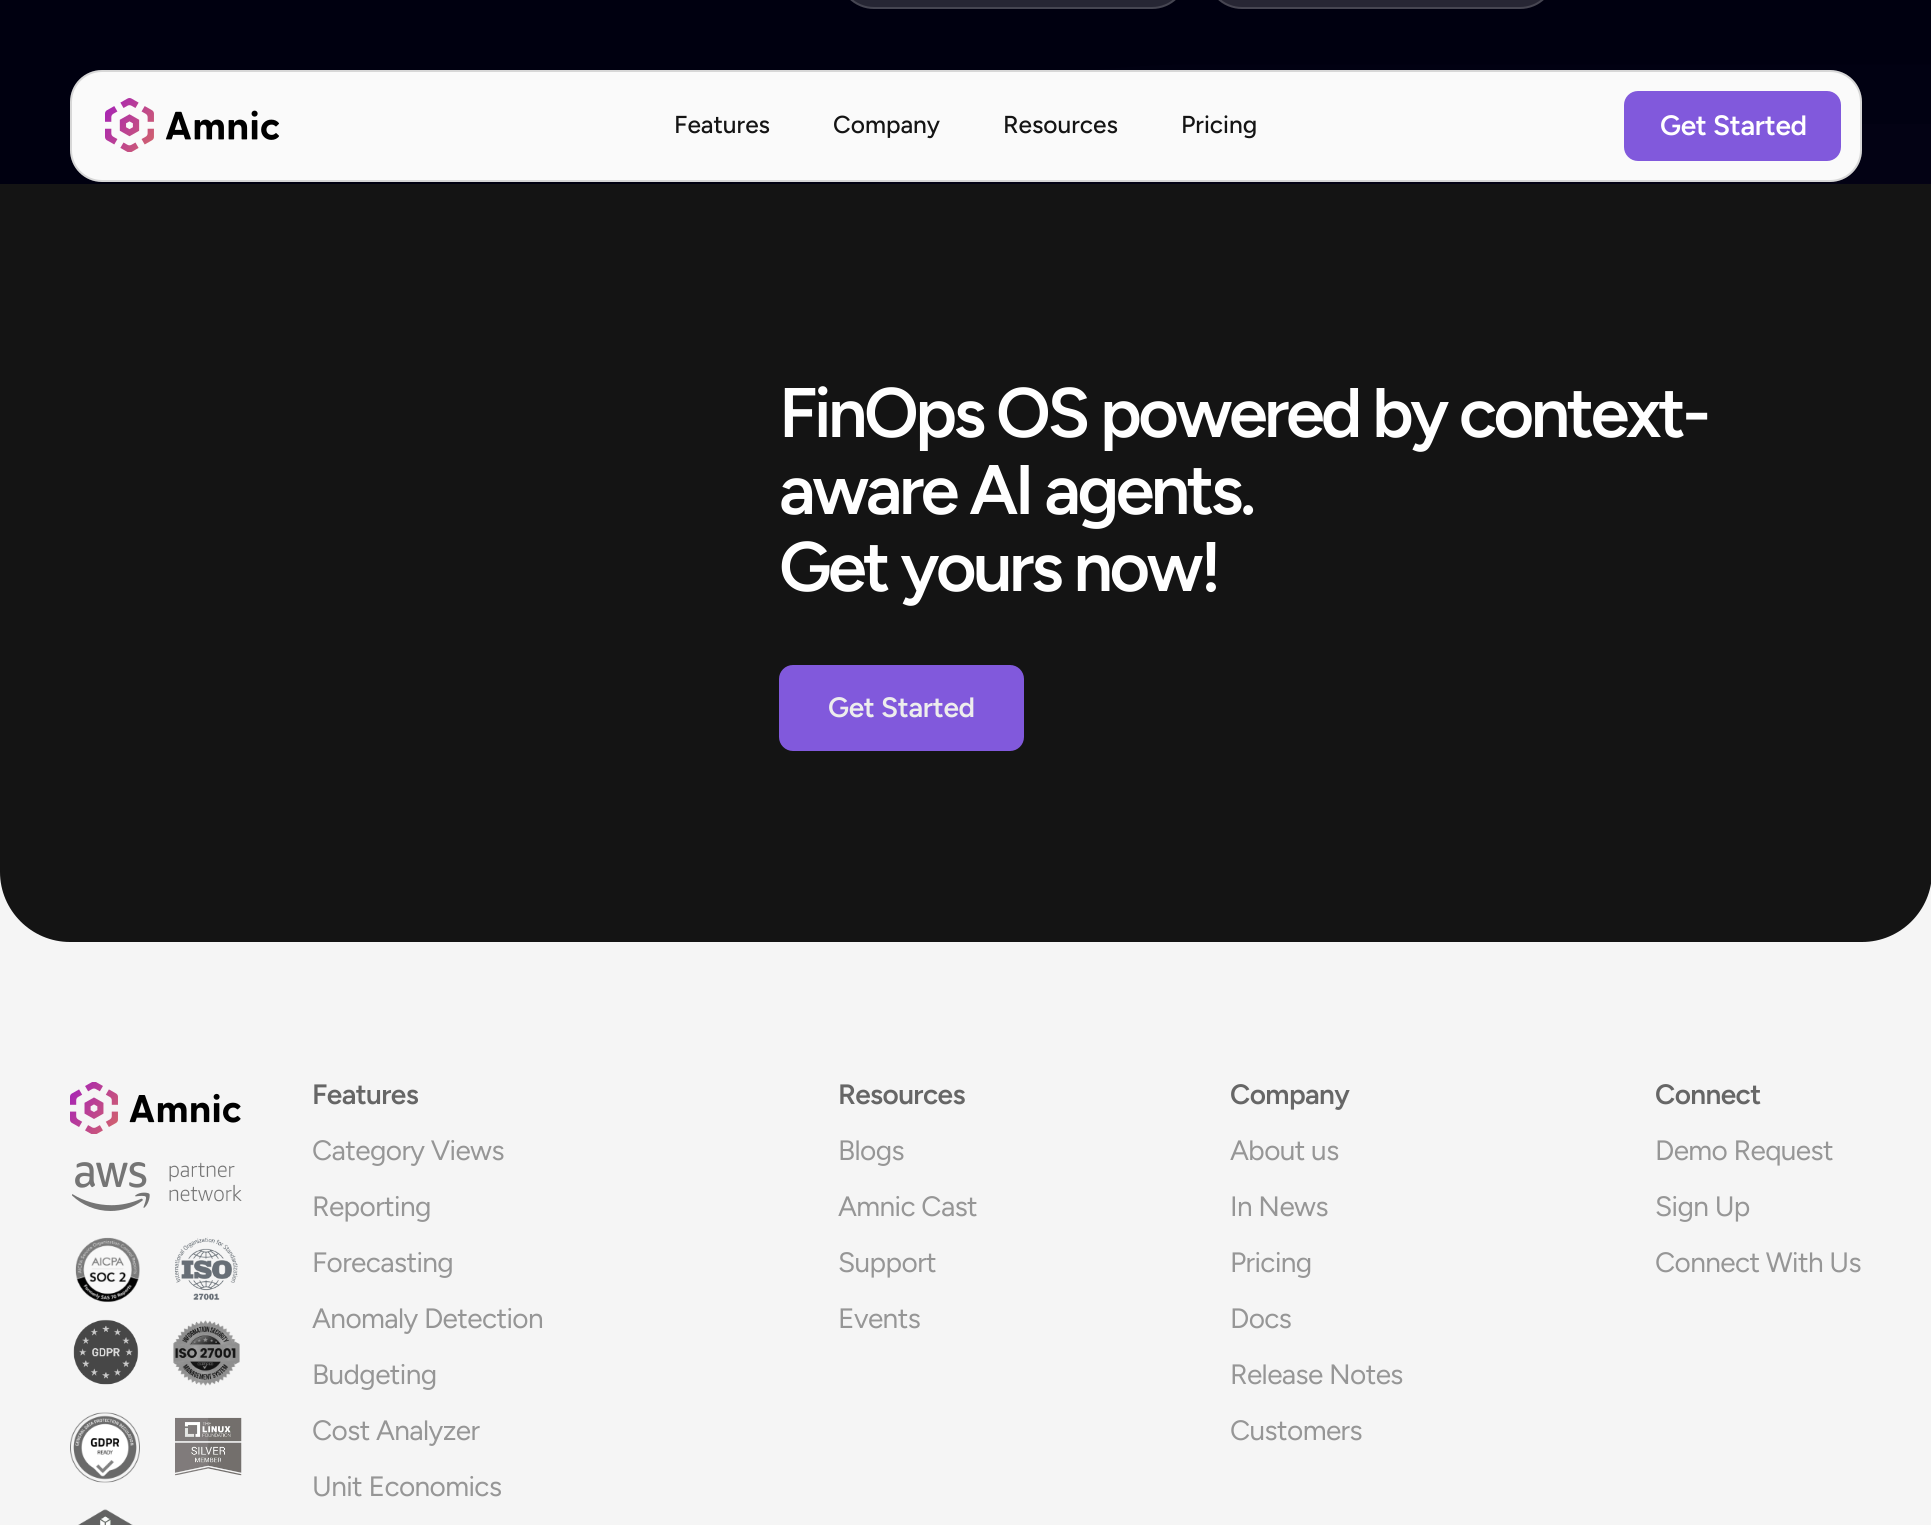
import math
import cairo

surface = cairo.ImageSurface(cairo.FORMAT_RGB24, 1931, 1525)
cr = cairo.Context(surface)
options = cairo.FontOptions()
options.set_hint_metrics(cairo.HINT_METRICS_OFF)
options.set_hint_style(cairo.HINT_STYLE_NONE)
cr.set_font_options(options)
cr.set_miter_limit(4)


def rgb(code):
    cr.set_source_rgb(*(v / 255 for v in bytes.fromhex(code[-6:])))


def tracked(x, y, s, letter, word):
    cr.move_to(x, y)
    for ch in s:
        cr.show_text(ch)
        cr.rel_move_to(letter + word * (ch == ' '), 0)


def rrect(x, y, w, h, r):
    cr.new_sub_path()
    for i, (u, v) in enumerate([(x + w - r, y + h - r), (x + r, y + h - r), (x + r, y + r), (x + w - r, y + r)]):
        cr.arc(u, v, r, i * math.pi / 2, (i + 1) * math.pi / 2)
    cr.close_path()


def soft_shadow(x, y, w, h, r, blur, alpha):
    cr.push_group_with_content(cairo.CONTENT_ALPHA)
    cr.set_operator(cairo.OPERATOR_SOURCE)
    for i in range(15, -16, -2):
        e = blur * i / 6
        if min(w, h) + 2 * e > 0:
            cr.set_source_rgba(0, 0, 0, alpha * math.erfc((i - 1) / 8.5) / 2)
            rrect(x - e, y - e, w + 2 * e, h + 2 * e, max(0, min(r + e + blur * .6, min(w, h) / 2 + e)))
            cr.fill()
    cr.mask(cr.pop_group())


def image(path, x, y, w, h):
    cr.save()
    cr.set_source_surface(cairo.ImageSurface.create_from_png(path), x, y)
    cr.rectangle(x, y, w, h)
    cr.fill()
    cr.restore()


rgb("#000010")
cr.paint()
rgb("#9a62c5")
soft_shadow(660, 513, 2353, 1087, 543.5, 179.5, 1)
rgb("#262634")
rrect(838, -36, 350, 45, 36)
cr.fill()
rrect(839, -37, 348, 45, 35)
cr.set_source_rgba(1, 1, 1, 0.15)
cr.stroke()
rgb("#272634")
rrect(1206, -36, 350, 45, 36)
cr.fill()
rrect(1207, -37, 348, 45, 35)
cr.set_source_rgba(1, 1, 1, 0.15)
cr.stroke()
rgb("#fafafa")
rrect(70, 70, 1792, 112, 32)
cr.fill()
image("img/1.png", 105, 98, 174, 54)
rgb("#8159dc")
rrect(1624, 91, 217, 70, 14)
cr.fill()
rrect(71, 71, 1790, 110, 31)
cr.set_source_rgba(0.078, 0.078, 0.078, 0.15)
cr.stroke()
rgb("#f5f5f5")
cr.rectangle(0, 872, 1931, 653)
cr.fill()
rgb("#141414")
cr.new_path()
cr.move_to(0, 184)
cr.line_to(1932, 184)
cr.line_to(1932, 872)
cr.curve_to(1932, 910.5, 1900.5, 942, 1862, 942)
cr.line_to(70, 942)
cr.curve_to(31.5, 942, 0, 910.5, 0, 872)
cr.close_path()
cr.fill()
rgb("#8159dc")
rrect(779, 665, 245, 86, 14)
cr.fill()
image("img/2.png", 70, 1082, 171, 52)
image("img/3.png", 72, 1162, 170, 49)
image("img/4.png", 75, 1237, 65, 66)
image("img/5.png", 175, 1237, 63, 64)
image("img/6.png", 73, 1319, 66, 66)
image("img/7.png", 173, 1320, 67, 66)
image("img/8.png", 70, 1412, 70, 71)
image("img/9.png", 175, 1417, 67, 59)
image("img/10.png", 78, 1509, 55, 16)
cr.select_font_face("Figtree Medium")
cr.set_font_size(24.5)
rgb("#141414")
for x, y, s in [
    (674, 133, "Features"),
    (833, 133, "Company"),
    (1003, 133, "Resources"),
    (1181, 133, "Pricing"),
]:
    cr.move_to(x, y)
    cr.show_text(s)
cr.select_font_face("Figtree SemiBold")
cr.set_font_size(28)
rgb("#ffffff")
tracked(1660, 135, "Get Started", -0.3, 0)
cr.set_font_size(70)
for x, y, s in [
    (779, 437, "FinOps OS powered by context-"),
    (779, 514, "aware AI agents."),
    (779, 591, "Get yours now!"),
]:
    tracked(x, y, s, -3.5, 0)
cr.set_font_size(28)
rgb("#ededed")
tracked(828, 717, "Get Started", -0.3, 0)
rgb("#666666")
tracked(312, 1104, "Features", -0.6, 0)
cr.select_font_face("Figtree")
rgb("#969696")
for x, y, s in [
    (312, 1160, "Category Views"),
    (312, 1216, "Reporting"),
    (312, 1272, "Forecasting"),
    (312, 1328, "Anomaly Detection"),
    (312, 1384, "Budgeting"),
    (312, 1440, "Cost Analyzer"),
    (312, 1496, "Unit Economics"),
]:
    tracked(x, y, s, -0.6, 0)
cr.select_font_face("Figtree SemiBold")
rgb("#666666")
tracked(838, 1104, "Resources", -0.6, 0)
cr.select_font_face("Figtree")
rgb("#969696")
for x, y, s in [
    (838, 1160, "Blogs"),
    (838, 1216, "Amnic Cast"),
    (838, 1272, "Support"),
    (838, 1328, "Events"),
]:
    tracked(x, y, s, -0.6, 0)
cr.select_font_face("Figtree SemiBold")
rgb("#666666")
tracked(1230, 1104, "Company", -0.6, 0)
cr.select_font_face("Figtree")
rgb("#969696")
for x, y, s in [
    (1230, 1160, "About us"),
    (1230, 1216, "In News"),
    (1230, 1272, "Pricing"),
    (1230, 1328, "Docs"),
    (1230, 1384, "Release Notes"),
    (1230, 1440, "Customers"),
]:
    tracked(x, y, s, -0.6, 0)
cr.select_font_face("Figtree SemiBold")
rgb("#666666")
tracked(1655, 1104, "Connect", -0.6, 0)
cr.select_font_face("Figtree")
rgb("#969696")
for x, y, s in [
    (1655, 1160, "Demo Request"),
    (1655, 1216, "Sign Up"),
    (1655, 1272, "Connect With Us"),
]:
    tracked(x, y, s, -0.6, 0)
surface.write_to_png("page.png")
